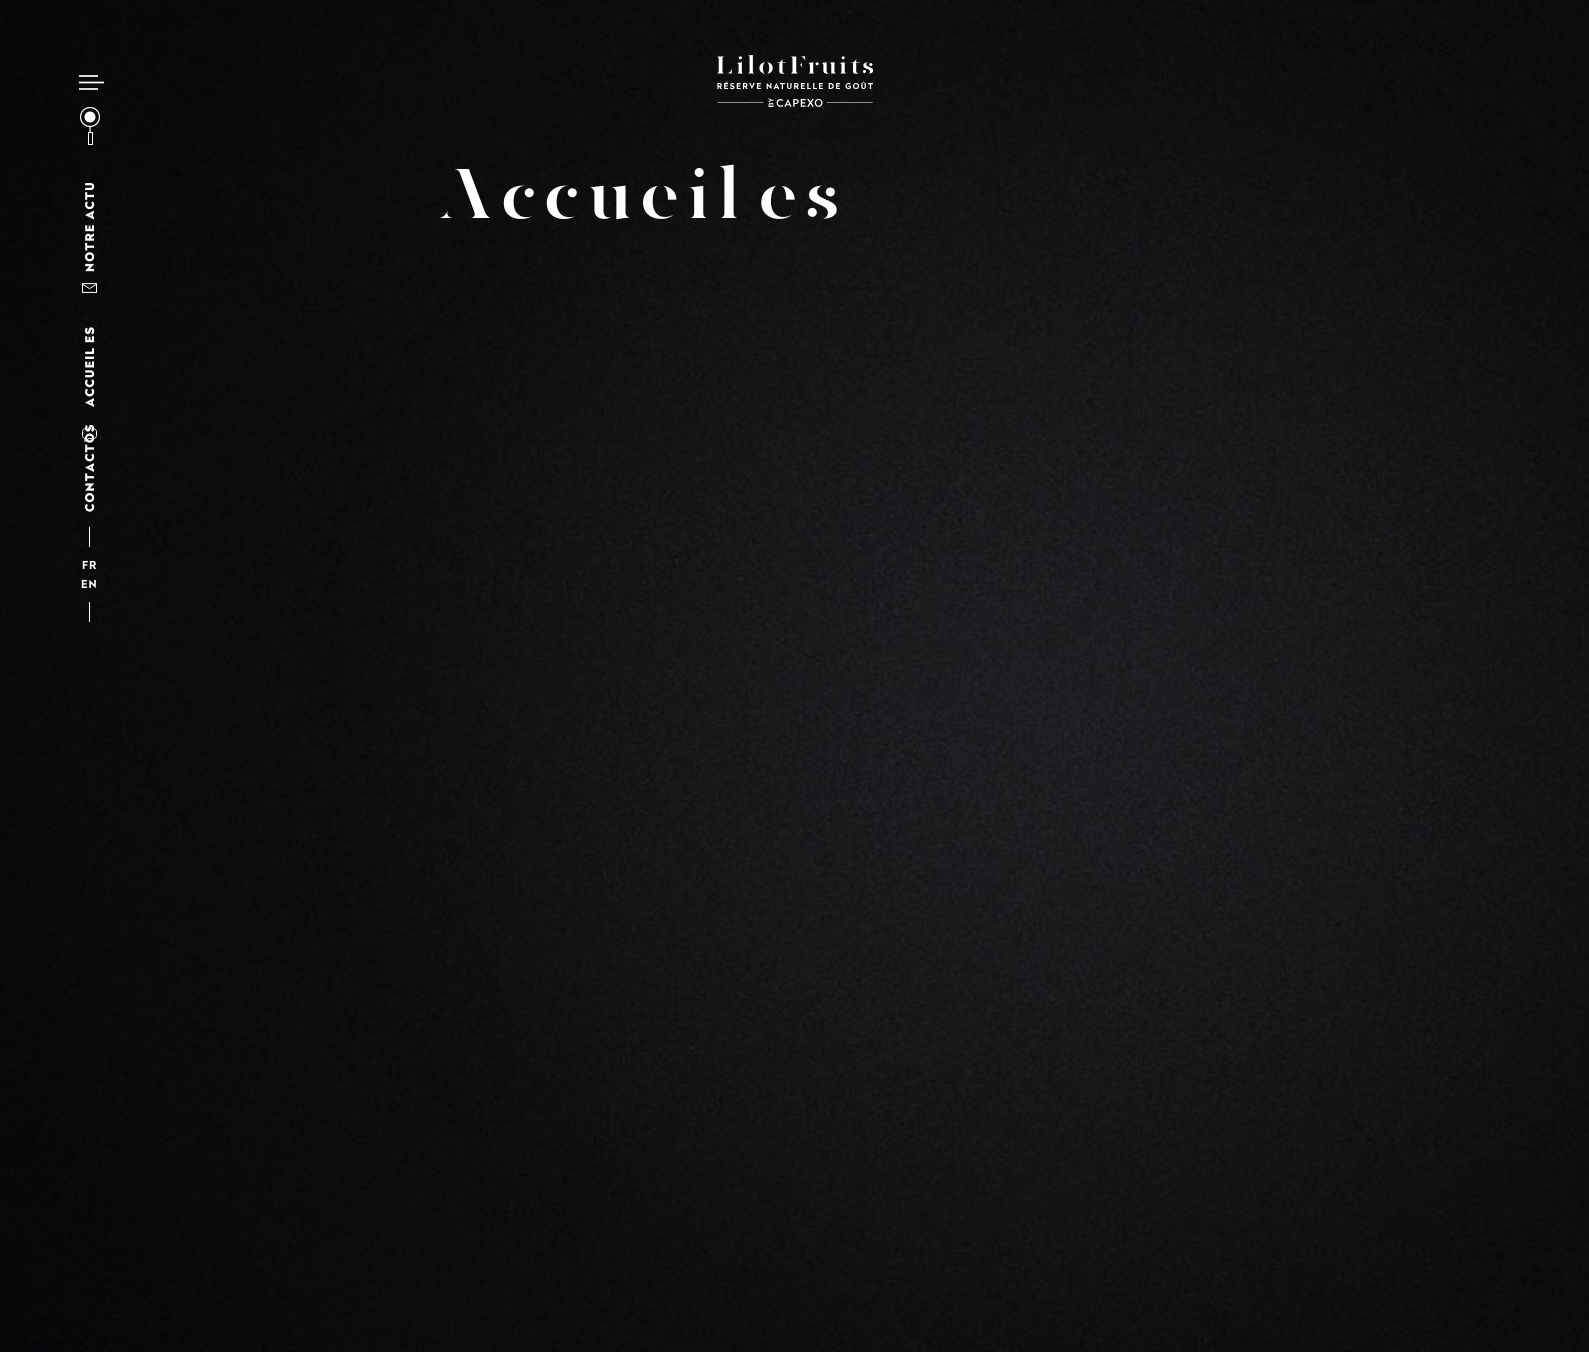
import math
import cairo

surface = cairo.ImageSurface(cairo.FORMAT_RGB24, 1589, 1352)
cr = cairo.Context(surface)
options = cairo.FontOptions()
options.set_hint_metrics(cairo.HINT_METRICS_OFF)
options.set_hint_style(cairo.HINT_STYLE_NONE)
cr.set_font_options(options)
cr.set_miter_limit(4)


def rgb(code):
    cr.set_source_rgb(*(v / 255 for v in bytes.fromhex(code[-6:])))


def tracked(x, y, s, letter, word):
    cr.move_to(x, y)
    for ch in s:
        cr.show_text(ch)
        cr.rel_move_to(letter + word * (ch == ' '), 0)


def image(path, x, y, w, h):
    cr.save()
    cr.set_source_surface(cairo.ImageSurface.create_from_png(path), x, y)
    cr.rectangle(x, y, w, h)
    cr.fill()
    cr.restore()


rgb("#ffffff")
cr.paint()
image("img/1.png", 0, 0, 1589, 1352)
image("img/2.png", 717, 55, 157, 52)
cr.new_path()
cr.move_to(79, 82.5)
cr.line_to(104, 82.5)
rgb("#ffffff")
cr.set_line_width(1.7)
cr.stroke()
rgb("#dadada")
cr.rectangle(79, 75, 19, 2)
cr.fill()
cr.rectangle(79, 88, 19, 2)
cr.fill()
cr.arc(90, 117, 9.5, 0, 2 * math.pi)
rgb("#ffffff")
cr.set_line_width(1.2)
cr.stroke()
cr.arc(90, 117, 5.5, 0, 2 * math.pi)
cr.fill()
cr.new_path()
cr.move_to(90, 133)
cr.line_to(90, 126.5)
cr.stroke()
cr.rectangle(88.5, 132.5, 4, 12)
cr.set_line_width(1)
cr.stroke()
image("img/3.png", 82, 283, 15, 10)
image("img/4.png", 82, 428, 15, 14)
cr.rectangle(89, 527, 1, 20)
cr.fill()
cr.rectangle(89, 602, 1, 20)
cr.fill()
cr.select_font_face("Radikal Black")
cr.set_font_size(12)
cr.save()
cr.translate(94, 272)
cr.rotate(-90 * math.pi / 180)
tracked(0, 0, "NOTRE ACTU", 1.25, 0)
cr.restore()
cr.save()
cr.translate(94, 407)
cr.rotate(-90 * math.pi / 180)
tracked(0, 0, "ACCUEIL ES", 1.25, 0)
cr.restore()
cr.save()
cr.translate(94, 512)
cr.rotate(-90 * math.pi / 180)
tracked(0, 0, "CONTACTOS", 1.25, 0)
cr.restore()
cr.select_font_face("Radikal", cairo.FONT_SLANT_NORMAL, cairo.FONT_WEIGHT_BOLD)
cr.set_font_size(11)
tracked(82, 569, "FR", 1, 0)
tracked(81, 588, "EN", 1, 0)
cr.select_font_face("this")
cr.set_font_size(70)
tracked(435, 218, "Accueil es", 4, 0)
surface.write_to_png("page.png")
